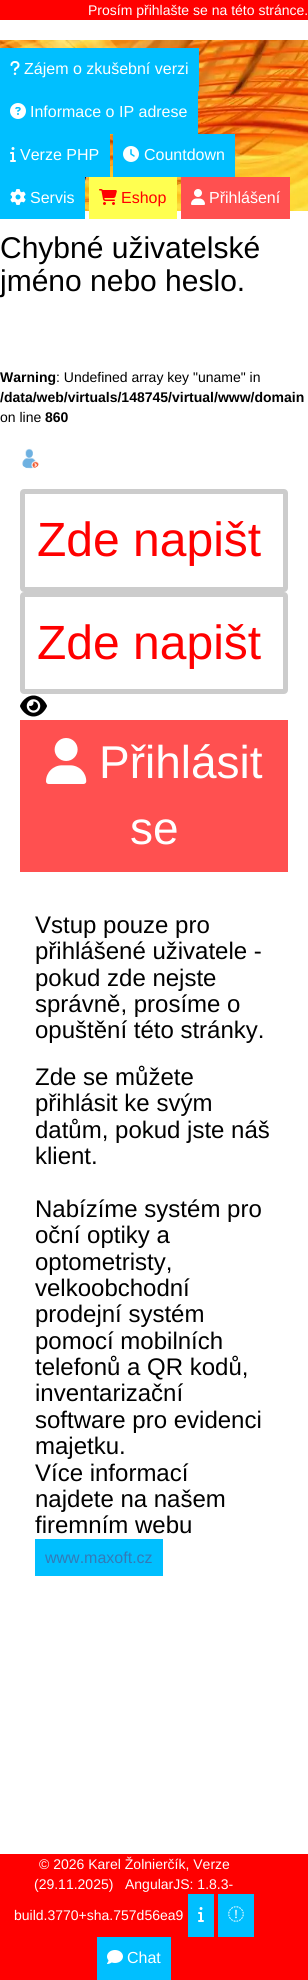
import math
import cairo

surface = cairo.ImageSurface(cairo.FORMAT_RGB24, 308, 1980)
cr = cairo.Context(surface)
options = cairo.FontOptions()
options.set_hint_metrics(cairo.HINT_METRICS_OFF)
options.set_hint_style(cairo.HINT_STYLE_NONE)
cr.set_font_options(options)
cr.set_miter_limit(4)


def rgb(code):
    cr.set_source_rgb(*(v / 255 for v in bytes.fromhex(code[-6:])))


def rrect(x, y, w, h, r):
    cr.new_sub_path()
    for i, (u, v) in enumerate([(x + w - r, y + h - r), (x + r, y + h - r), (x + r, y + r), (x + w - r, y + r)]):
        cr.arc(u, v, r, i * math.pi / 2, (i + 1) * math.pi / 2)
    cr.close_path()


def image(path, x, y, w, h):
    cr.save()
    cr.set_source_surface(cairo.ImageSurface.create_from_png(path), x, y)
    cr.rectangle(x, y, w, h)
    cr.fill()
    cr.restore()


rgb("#ffffff")
cr.paint()
rgb("#ff0000")
cr.rectangle(0, 0, 308, 20)
cr.fill()
image("img/1.png", 0, 40, 308, 171)
rgb("#00bfff")
cr.rectangle(0, 48, 199, 43)
cr.fill()
image("img/2.png", 10, 61, 10, 14)
cr.rectangle(0, 91, 198, 43)
cr.fill()
image("img/3.png", 10, 103, 16, 16)
cr.rectangle(0, 134, 110, 43)
cr.fill()
image("img/4.png", 10, 147, 6, 15)
cr.rectangle(113, 134, 122, 43)
cr.fill()
image("img/5.png", 123, 146, 16, 16)
cr.rectangle(0, 177, 85, 42)
cr.fill()
image("img/6.png", 10, 189, 16, 16)
rgb("#ffff50")
cr.rectangle(89, 177, 88, 42)
cr.fill()
image("img/7.png", 99, 189, 18, 16)
rgb("#ff5050")
cr.rectangle(181, 177, 109, 42)
cr.fill()
image("img/8.png", 191, 189, 14, 16)
image("img/9.png", 22, 448, 17, 21)
rrect(22.5, 491.5, 263, 98, 1.5)
rgb("#cccccc")
cr.set_line_width(5)
cr.stroke()
rrect(22.5, 594.5, 263, 97, 1.5)
cr.stroke()
image("img/10.png", 20, 695, 27, 22)
rgb("#ff5050")
cr.rectangle(20, 720, 268, 152)
cr.fill()
image("img/11.png", 46, 738, 41, 46)
for x, y, w, h, color in [
    (35, 1539, 128, 37, "#00bfff"),
    (0, 1854, 308, 126, "#ff0000"),
    (188, 1894, 26, 43, "#00bfff"),
]:
    rgb(color)
    cr.rectangle(x, y, w, h)
    cr.fill()
image("img/4.png", 198, 1907, 6, 15)
cr.rectangle(218, 1894, 36, 43)
cr.fill()
image("img/12.png", 228, 1906, 16, 16)
cr.rectangle(97, 1937, 74, 43)
cr.fill()
image("img/13.png", 107, 1950, 16, 14)
cr.select_font_face("Liberation Sans")
cr.set_font_size(14)
rgb("#ffffff")
cr.move_to(88, 15)
cr.show_text("Prosím přihlašte se na této stránce.")
cr.set_font_size(16)
for x, y, s in [
    (24, 74, "Zájem o zkušební verzi"),
    (30, 117, "Informace o IP adrese"),
    (20, 160, "Verze PHP"),
    (144, 160, "Countdown"),
    (30, 203, "Servis"),
]:
    cr.move_to(x, y)
    cr.show_text(s)
rgb("#ff0000")
cr.move_to(121, 203)
cr.show_text("Eshop")
rgb("#ffffff")
cr.move_to(209, 203)
cr.show_text("Přihlášení")
cr.set_font_size(30)
rgb("#000000")
cr.move_to(0, 258)
cr.show_text("Chybné uživatelské")
cr.move_to(0, 291)
cr.show_text("jméno nebo heslo.")
cr.select_font_face("Liberation Sans", cairo.FONT_SLANT_NORMAL, cairo.FONT_WEIGHT_BOLD)
cr.set_font_size(14)
cr.move_to(0, 382)
cr.show_text("Warning")
cr.select_font_face("Liberation Sans")
cr.move_to(56, 382)
cr.show_text(": Undefined array key \"uname\" in")
cr.select_font_face("Liberation Sans", cairo.FONT_SLANT_NORMAL, cairo.FONT_WEIGHT_BOLD)
cr.move_to(0, 402)
cr.show_text("/data/web/virtuals/148745/virtual/www/domain")
cr.select_font_face("Liberation Sans")
cr.move_to(0, 422)
cr.show_text("on line")
cr.select_font_face("Liberation Sans", cairo.FONT_SLANT_NORMAL, cairo.FONT_WEIGHT_BOLD)
cr.move_to(45, 422)
cr.show_text("860")
cr.select_font_face("Liberation Sans")
cr.set_font_size(48)
rgb("#ff0000")
cr.move_to(37, 556)
cr.show_text("Zde napišt")
cr.move_to(37, 659)
cr.show_text("Zde napišt")
cr.set_font_size(46)
rgb("#ffffff")
cr.move_to(99, 778)
cr.show_text("Přihlásit")
cr.move_to(130, 844)
cr.show_text("se")
cr.set_font_size(24)
rgb("#000000")
for x, y, s in [
    (35, 933, "Vstup pouze pro"),
    (35, 959, "přihlášené uživatele -"),
    (35, 986, "pokud zde nejste"),
    (35, 1012, "správně, prosíme o"),
    (35, 1038, "opuštění této stránky."),
    (35, 1085, "Zde se můžete"),
    (35, 1111, "přihlásit ke svým"),
    (35, 1138, "datům, pokud jste náš"),
    (35, 1164, "klient."),
    (35, 1217, "Nabízíme systém pro"),
    (35, 1243, "oční optiky a"),
    (35, 1270, "optometristy,"),
    (35, 1296, "velkoobchodní"),
    (35, 1322, "prodejní systém"),
    (35, 1349, "pomocí mobilních"),
    (35, 1375, "telefonů a QR kodů,"),
    (35, 1401, "inventarizační"),
    (35, 1428, "software pro evidenci"),
    (35, 1454, "majetku."),
    (35, 1481, "Více informací"),
    (35, 1507, "najdete na našem"),
    (35, 1533, "firemním webu"),
]:
    cr.move_to(x, y)
    cr.show_text(s)
cr.set_font_size(16)
rgb("#337ab7")
cr.move_to(45, 1563)
cr.show_text("www.maxoft.cz")
cr.set_font_size(14)
rgb("#ffffff")
for x, y, s in [
    (39, 1869, "© 2026 Karel Žolnierčík, Verze"),
    (34, 1889, "(29.11.2025)"),
    (125, 1889, "AngularJS: 1.8.3-"),
    (14, 1920, "build.3770+sha.757d56ea9"),
]:
    cr.move_to(x, y)
    cr.show_text(s)
cr.set_font_size(16)
cr.move_to(127, 1963)
cr.show_text("Chat")
surface.write_to_png("page.png")
